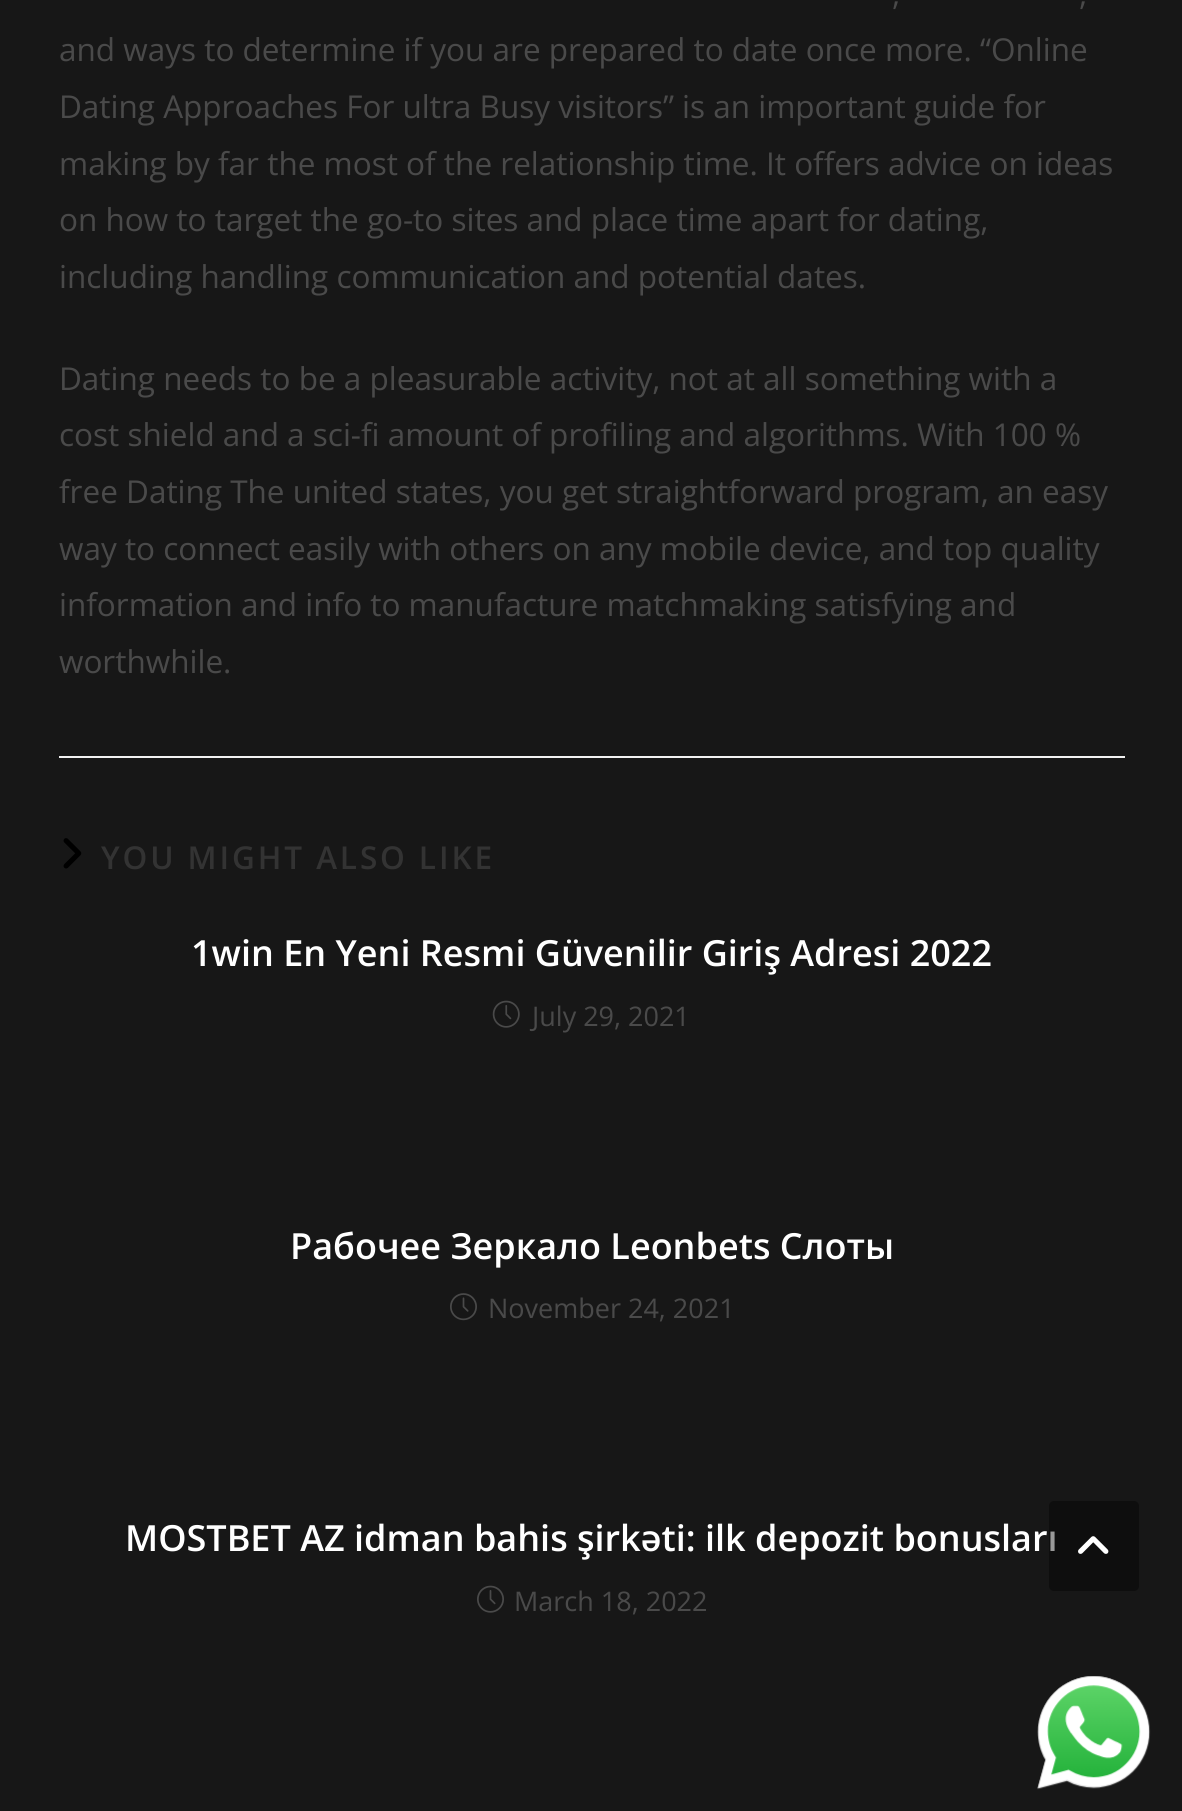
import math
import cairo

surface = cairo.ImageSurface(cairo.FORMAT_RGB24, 1182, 1811)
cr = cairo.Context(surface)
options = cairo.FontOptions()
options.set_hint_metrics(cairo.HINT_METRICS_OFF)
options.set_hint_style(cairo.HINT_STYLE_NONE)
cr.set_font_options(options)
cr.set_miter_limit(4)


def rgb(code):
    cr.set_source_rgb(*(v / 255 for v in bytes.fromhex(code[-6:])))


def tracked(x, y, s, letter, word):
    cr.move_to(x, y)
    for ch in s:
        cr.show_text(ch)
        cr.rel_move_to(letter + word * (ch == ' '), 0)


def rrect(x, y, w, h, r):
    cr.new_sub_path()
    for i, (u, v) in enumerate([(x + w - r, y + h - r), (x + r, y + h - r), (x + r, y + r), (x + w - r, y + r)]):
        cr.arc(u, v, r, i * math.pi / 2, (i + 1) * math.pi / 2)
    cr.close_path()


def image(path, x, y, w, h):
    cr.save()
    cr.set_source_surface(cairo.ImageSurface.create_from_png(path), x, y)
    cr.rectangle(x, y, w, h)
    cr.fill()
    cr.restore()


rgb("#171717")
cr.paint()
rgb("#f1f1f1")
cr.rectangle(59, 756, 1066, 2)
cr.fill()
image("img/1.png", 63, 838, 19, 31)
image("img/2.png", 492, 1000, 28, 28)
image("img/3.png", 450, 1293, 27, 28)
image("img/4.png", 477, 1585, 27, 28)
image("img/6.png", 1037, 1676, 114, 114)
cr.select_font_face("Open Sans")
cr.set_font_size(31.5)
rgb("#4a4a4a")
for x, y, s in [
    (892, 5, ","),
    (1079, 5, ","),
    (59, 61, "and ways to determine if you are prepared to date once more. “Online"),
    (59, 118, "Dating Approaches For ultra Busy visitors” is an important guide for"),
    (59, 175, "making by far the most of the relationship time. It offers advice on ideas"),
    (59, 231, "on how to target the go-to sites and place time apart for dating,"),
    (59, 288, "including handling communication and potential dates."),
    (59, 390, "Dating needs to be a pleasurable activity, not at all something with a"),
    (59, 446, "cost shield and a sci-fi amount of profiling and algorithms. With 100 %"),
    (59, 503, "free Dating The united states, you get straightforward program, an easy"),
    (59, 560, "way to connect easily with others on any mobile device, and top quality"),
    (59, 616, "information and info to manufacture matchmaking satisfying and"),
    (59, 673, "worthwhile."),
]:
    cr.move_to(x, y)
    cr.show_text(s)
cr.select_font_face("Open Sans SemiBold")
rgb("#333333")
tracked(101, 869, "YOU MIGHT ALSO LIKE", 2.9, 0)
cr.set_font_size(36)
rgb("#ffffff")
cr.move_to(191, 966)
cr.show_text("1win En Yeni Resmi Güvenilir Giriş Adresi 2022")
cr.select_font_face("Open Sans")
cr.set_font_size(27)
rgb("#4a4a4a")
cr.move_to(532, 1026)
cr.show_text("July 29, 2021")
cr.select_font_face("Open Sans SemiBold")
cr.set_font_size(36)
rgb("#ffffff")
cr.move_to(290, 1259)
cr.show_text("Рабочее Зеркало Leonbets Слоты")
cr.select_font_face("Open Sans")
cr.set_font_size(27)
rgb("#4a4a4a")
cr.move_to(488, 1318)
cr.show_text("November 24, 2021")
cr.select_font_face("Open Sans SemiBold")
cr.set_font_size(36)
rgb("#ffffff")
cr.move_to(125, 1551)
cr.show_text("MOSTBET AZ idman bahis şirkəti: ilk depozit bonusları")
cr.select_font_face("Open Sans")
cr.set_font_size(27)
rgb("#4a4a4a")
cr.move_to(514, 1611)
cr.show_text("March 18, 2022")
cr.set_source_rgba(0, 0, 0, 0.4)
rrect(1049, 1501, 90, 90, 5)
cr.fill()
image("img/5.png", 1078, 1536, 31, 18)
surface.write_to_png("page.png")
